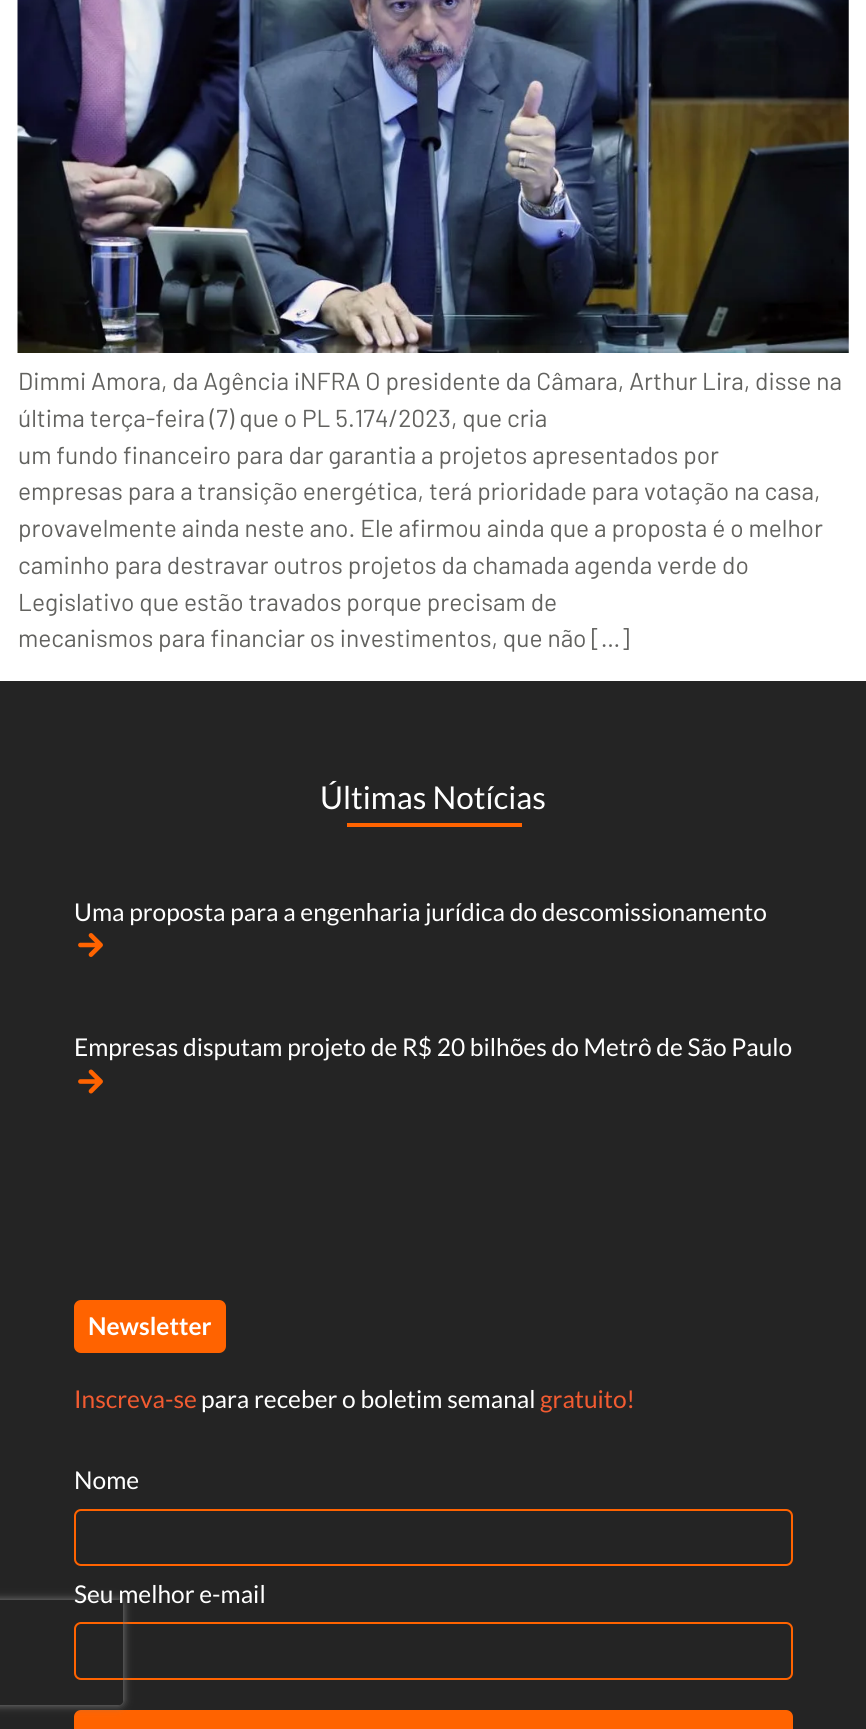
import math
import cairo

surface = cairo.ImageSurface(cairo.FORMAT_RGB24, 866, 1729)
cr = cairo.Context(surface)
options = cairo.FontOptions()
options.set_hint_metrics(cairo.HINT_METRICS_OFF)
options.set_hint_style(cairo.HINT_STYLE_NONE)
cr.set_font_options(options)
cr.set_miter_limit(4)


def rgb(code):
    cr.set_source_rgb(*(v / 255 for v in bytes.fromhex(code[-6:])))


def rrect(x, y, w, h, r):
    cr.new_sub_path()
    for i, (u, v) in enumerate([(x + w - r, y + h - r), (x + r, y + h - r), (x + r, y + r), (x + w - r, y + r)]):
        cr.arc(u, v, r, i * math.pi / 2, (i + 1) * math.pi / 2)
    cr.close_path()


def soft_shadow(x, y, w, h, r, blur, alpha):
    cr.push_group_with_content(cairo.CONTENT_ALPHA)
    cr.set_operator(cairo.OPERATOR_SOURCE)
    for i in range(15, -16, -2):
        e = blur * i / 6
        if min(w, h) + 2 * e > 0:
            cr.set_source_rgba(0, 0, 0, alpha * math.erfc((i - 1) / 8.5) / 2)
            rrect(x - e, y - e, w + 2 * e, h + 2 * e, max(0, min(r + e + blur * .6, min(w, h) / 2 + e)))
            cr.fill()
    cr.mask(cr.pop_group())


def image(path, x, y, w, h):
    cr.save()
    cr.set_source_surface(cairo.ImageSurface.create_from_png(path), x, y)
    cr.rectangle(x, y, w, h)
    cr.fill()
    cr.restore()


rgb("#ffffff")
cr.paint()
image("img/1.png", 17, 0, 832, 353)
rgb("#242424")
cr.rectangle(0, 681, 866, 1048)
cr.fill()
rgb("#ff6300")
cr.rectangle(347, 823, 175, 4)
cr.fill()
image("img/2.png", 78, 933, 25, 24)
image("img/3.png", 78, 1069, 25, 25)
rrect(74, 1300, 152, 53, 7)
cr.fill()
rrect(75, 1510, 717, 55, 6)
cr.stroke()
rrect(75, 1623, 717, 56, 6)
cr.stroke()
rrect(74, 1710, 719, 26, 7)
cr.fill()
cr.save()
cr.set_fill_rule(cairo.FILL_RULE_EVEN_ODD)
cr.new_path()
cr.move_to(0, 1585)
cr.line_to(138, 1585)
cr.line_to(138, 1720)
cr.line_to(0, 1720)
cr.close_path()
cr.move_to(-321, 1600)
cr.line_to(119, 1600)
cr.curve_to(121, 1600, 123, 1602, 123, 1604)
cr.line_to(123, 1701)
cr.curve_to(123, 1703, 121, 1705, 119, 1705)
cr.line_to(-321, 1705)
cr.curve_to(-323, 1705, -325, 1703, -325, 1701)
cr.line_to(-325, 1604)
cr.curve_to(-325, 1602, -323, 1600, -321, 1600)
cr.close_path()
cr.clip()
rgb("#808080")
soft_shadow(-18, 1600, 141, 105, 4, 4.5, 1)
cr.restore()
cr.select_font_face("Barlow")
cr.set_font_size(24.5)
rgb("#62625f")
for x, y, s in [
    (18, 390, "Dimmi Amora, da Agência iNFRA O presidente da Câmara, Arthur Lira, disse na"),
    (18, 427, "última terça-feira (7) que o PL 5.174/2023, que cria"),
    (18, 464, "um fundo financeiro para dar garantia a projetos apresentados por"),
    (18, 500, "empresas para a transição energética, terá prioridade para votação na casa,"),
    (18, 537, "provavelmente ainda neste ano. Ele afirmou ainda que a proposta é o melhor"),
    (18, 574, "caminho para destravar outros projetos da chamada agenda verde do"),
    (18, 611, "Legislativo que estão travados porque precisam de"),
    (18, 647, "mecanismos para financiar os investimentos, que não […]"),
]:
    cr.move_to(x, y)
    cr.show_text(s)
cr.select_font_face("Lato")
cr.set_font_size(31.5)
rgb("#ffffff")
cr.move_to(320, 809)
cr.show_text("Últimas Notícias")
cr.set_font_size(24.5)
cr.move_to(74, 921)
cr.show_text("Uma proposta para a engenharia jurídica do descomissionamento")
cr.move_to(74, 1056)
cr.show_text("Empresas disputam projeto de R$ 20 bilhões do Metrô de São Paulo")
cr.select_font_face("Lato", cairo.FONT_SLANT_NORMAL, cairo.FONT_WEIGHT_BOLD)
cr.move_to(88, 1335)
cr.show_text("Newsletter")
cr.select_font_face("Lato")
rgb("#f35b31")
cr.move_to(74, 1408)
cr.show_text("Inscreva-se")
rgb("#ffffff")
cr.move_to(201, 1408)
cr.show_text("para receber o boletim semanal")
rgb("#f35b31")
cr.move_to(540, 1408)
cr.show_text("gratuito!")
rgb("#ffffff")
cr.move_to(74, 1489)
cr.show_text("Nome")
cr.move_to(74, 1603)
cr.show_text("Seu melhor e-mail")
surface.write_to_png("page.png")
